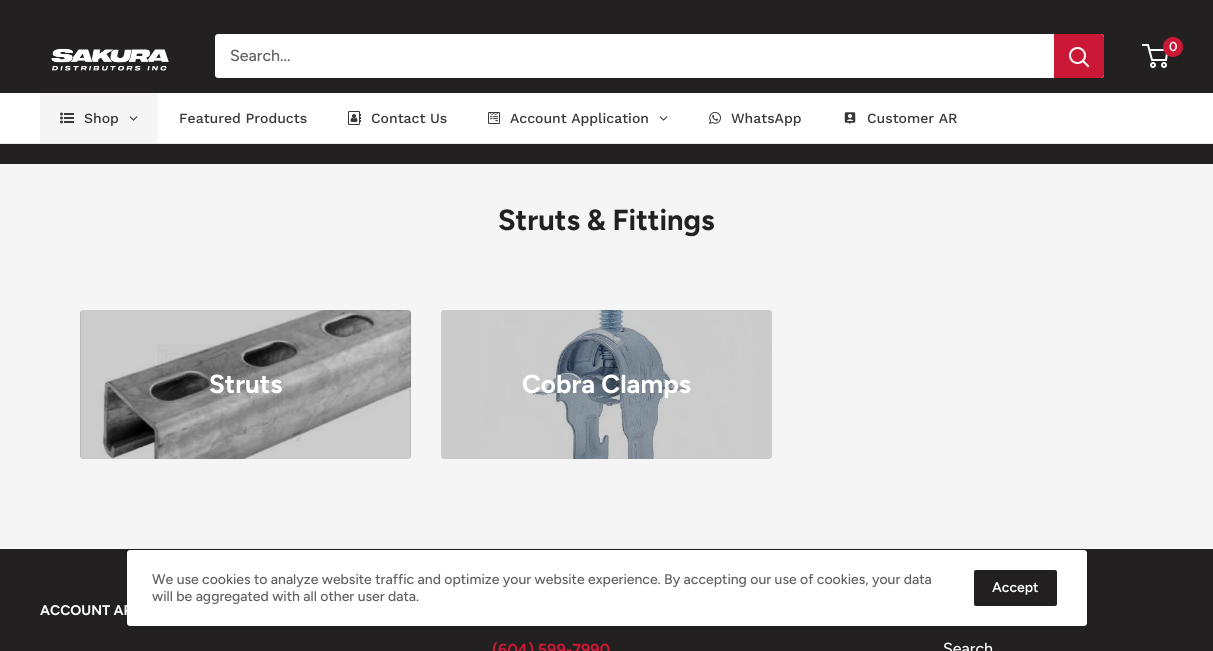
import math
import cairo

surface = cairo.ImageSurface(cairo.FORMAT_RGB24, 1213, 651)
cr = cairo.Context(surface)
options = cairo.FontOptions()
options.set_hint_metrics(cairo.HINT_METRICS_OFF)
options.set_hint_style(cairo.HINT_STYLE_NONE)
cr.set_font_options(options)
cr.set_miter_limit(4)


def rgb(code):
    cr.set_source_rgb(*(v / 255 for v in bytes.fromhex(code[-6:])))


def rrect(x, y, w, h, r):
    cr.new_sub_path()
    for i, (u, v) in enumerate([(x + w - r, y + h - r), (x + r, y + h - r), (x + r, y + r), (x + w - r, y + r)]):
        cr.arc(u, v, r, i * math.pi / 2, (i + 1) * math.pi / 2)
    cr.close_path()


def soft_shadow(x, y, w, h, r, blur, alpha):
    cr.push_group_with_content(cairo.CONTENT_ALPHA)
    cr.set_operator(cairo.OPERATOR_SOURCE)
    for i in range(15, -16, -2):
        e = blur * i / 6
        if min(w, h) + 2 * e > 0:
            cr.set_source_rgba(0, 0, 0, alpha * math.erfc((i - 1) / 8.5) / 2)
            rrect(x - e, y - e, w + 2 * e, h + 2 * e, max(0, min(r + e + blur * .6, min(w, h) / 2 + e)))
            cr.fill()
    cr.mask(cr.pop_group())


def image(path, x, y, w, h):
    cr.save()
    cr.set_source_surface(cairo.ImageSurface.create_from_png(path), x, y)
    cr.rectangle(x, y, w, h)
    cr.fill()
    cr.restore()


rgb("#f5f5f5")
cr.paint()
rgb("#222021")
cr.rectangle(0, 0, 1213, 164)
cr.fill()
cr.arc(1153, 65, 2, 0, 2 * math.pi)
rgb("#ffffff")
cr.stroke()
cr.arc(1164, 65, 2, 0, 2 * math.pi)
cr.stroke()
cr.new_path()
cr.move_to(1149.5, 50)
cr.line_to(1167.5, 50)
cr.line_to(1166, 60)
cr.line_to(1152, 60)
cr.line_to(1148, 45)
cr.line_to(1142, 45)
cr.stroke()
rgb("#cb1836")
cr.arc(1173, 47, 10, 0, 2 * math.pi)
cr.fill()
image("img/1.png", 51, 48, 118, 23)
rgb("#ffffff")
rrect(215, 34, 889, 44, 3)
cr.fill()
rgb("#cb1836")
cr.new_path()
cr.move_to(1054, 34)
cr.line_to(1101, 34)
cr.curve_to(1102.5, 34, 1104, 35.5, 1104, 37)
cr.line_to(1104, 75)
cr.curve_to(1104, 76.5, 1102.5, 78, 1101, 78)
cr.line_to(1054, 78)
cr.close_path()
cr.fill()
cr.new_path()
cr.move_to(1088, 66)
cr.line_to(1083, 61)
rgb("#ffffff")
cr.set_line_cap(cairo.LINE_CAP_SQUARE)
cr.stroke()
cr.arc(1077.5, 55.5, 7.5, 0, 2 * math.pi)
cr.set_line_cap(cairo.LINE_CAP_BUTT)
cr.stroke()
for x, y, w, h, color in [
    (0, 93, 1213, 50, "#ffffff"),
    (0, 143, 1213, 1, "#e8e8e8"),
    (40, 93, 118, 50, "#f5f5f5"),
]:
    rgb(color)
    cr.rectangle(x, y, w, h)
    cr.fill()
image("img/2.png", 60, 112, 14, 12)
image("img/3.png", 129, 116, 9, 5)
image("img/4.png", 348, 111, 13, 14)
image("img/5.png", 488, 112, 12, 12)
image("img/6.png", 659, 116, 9, 5)
image("img/7.png", 709, 112, 12, 12)
image("img/8.png", 844, 112, 12, 12)
image("img/9.png", 80, 310, 331, 149)
cr.set_source_rgba(0, 0, 0, 0.2)
rrect(80, 310, 331, 149, 3)
cr.fill()
image("img/10.png", 441, 310, 331, 149)
rrect(441, 310, 331, 149, 3)
cr.fill()
rgb("#222021")
cr.rectangle(0, 549, 1213, 102)
cr.fill()
rgb("#000000")
soft_shadow(126, 550, 962, 78, 4, 2, 0.1)
rgb("#ffffff")
rrect(127, 550, 960, 76, 3)
cr.fill()
rgb("#222021")
rrect(974, 570, 83, 36, 2)
cr.fill()
cr.select_font_face("Figtree SemiBold")
cr.set_font_size(13)
rgb("#ffffff")
cr.move_to(1169, 51)
cr.show_text("0")
cr.select_font_face("Figtree Medium")
cr.set_font_size(16)
rgb("#616161")
cr.move_to(230, 61)
cr.show_text("Search...")
cr.select_font_face("Work Sans Medium")
cr.set_font_size(14)
rgb("#383838")
for x, y, s in [
    (84, 123, "Shop"),
    (179, 123, "Featured Products"),
    (371, 123, "Contact Us"),
    (510, 123, "Account Application"),
    (731, 123, "WhatsApp"),
    (867, 123, "Customer AR"),
]:
    cr.move_to(x, y)
    cr.show_text(s)
cr.select_font_face("Figtree", cairo.FONT_SLANT_NORMAL, cairo.FONT_WEIGHT_BOLD)
cr.set_font_size(29)
rgb("#222021")
cr.move_to(498, 230)
cr.show_text("Struts & Fittings")
cr.set_font_size(26)
rgb("#ffffff")
cr.move_to(209, 393)
cr.show_text("Struts")
cr.move_to(522, 393)
cr.show_text("Cobra Clamps")
cr.select_font_face("Figtree Medium")
cr.set_font_size(14)
rgb("#616161")
cr.move_to(152, 584)
cr.show_text("We use cookies to analyze website traffic and optimize your website experience. By accepting our use of cookies, your data")
cr.move_to(152, 601)
cr.show_text("will be aggregated with all other user data.")
cr.select_font_face("Figtree SemiBold")
rgb("#ffffff")
cr.move_to(992, 592)
cr.show_text("Accept")
cr.select_font_face("Figtree", cairo.FONT_SLANT_NORMAL, cairo.FONT_WEIGHT_BOLD)
cr.move_to(40, 615)
cr.show_text("ACCOUNT AP")
cr.set_font_size(16)
rgb("#cb1836")
cr.move_to(492, 655)
cr.show_text("(604) 599-7990")
cr.select_font_face("Figtree Medium")
rgb("#ffffff")
cr.move_to(943, 654)
cr.show_text("Search")
surface.write_to_png("page.png")
